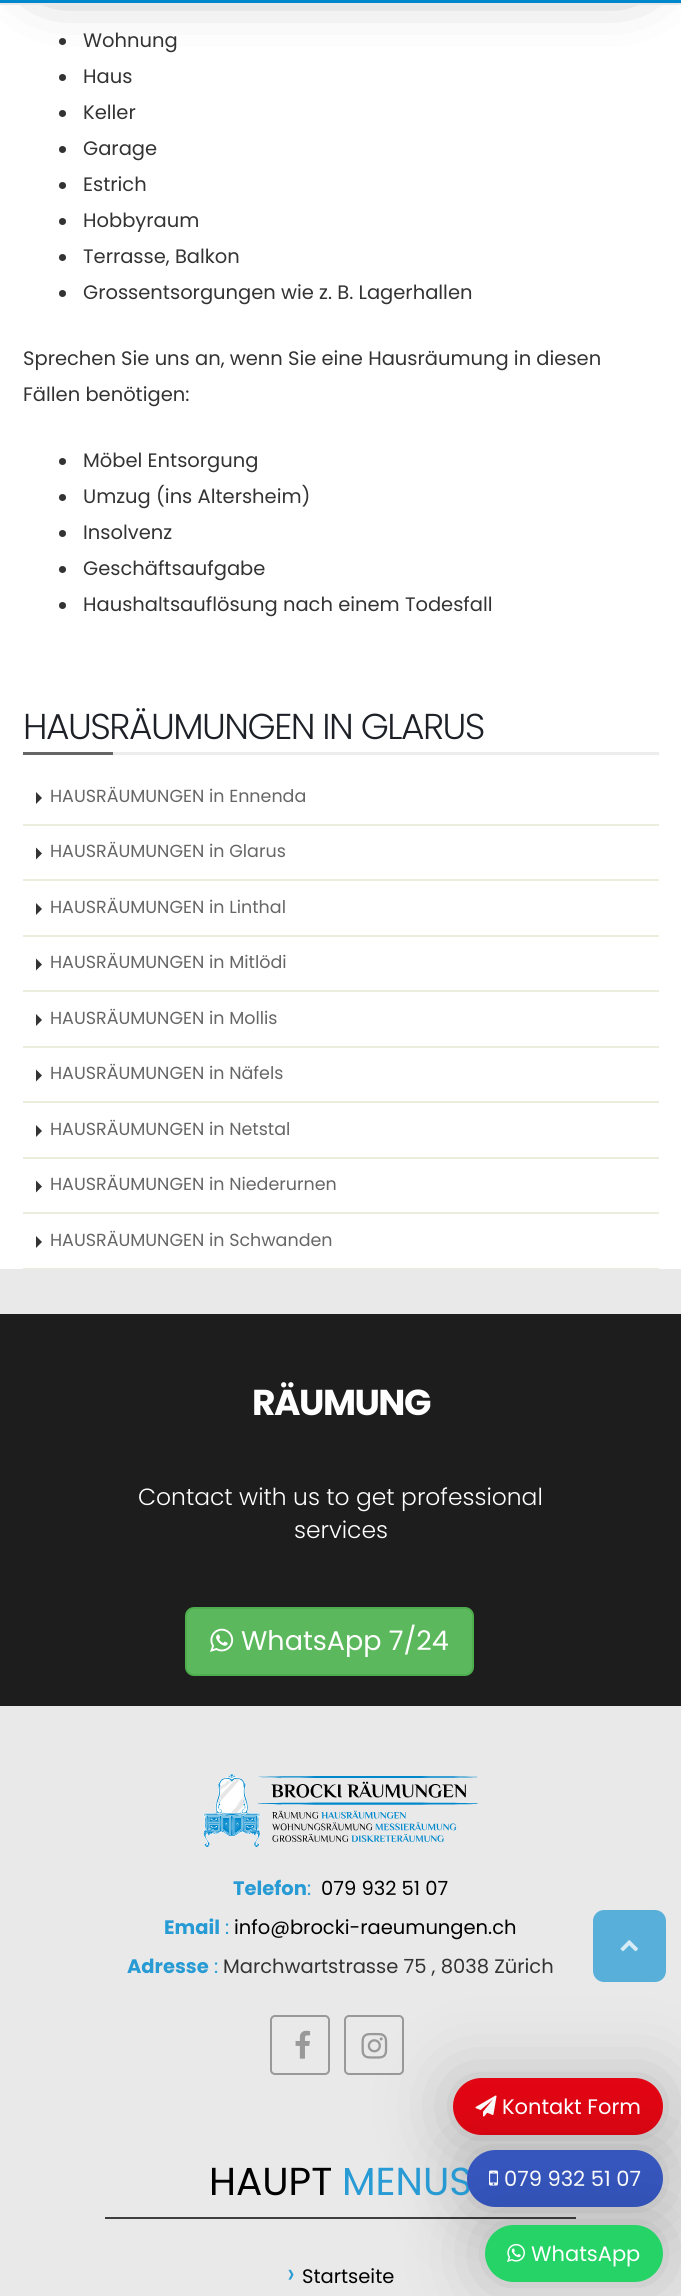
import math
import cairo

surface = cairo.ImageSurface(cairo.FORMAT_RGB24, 681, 2296)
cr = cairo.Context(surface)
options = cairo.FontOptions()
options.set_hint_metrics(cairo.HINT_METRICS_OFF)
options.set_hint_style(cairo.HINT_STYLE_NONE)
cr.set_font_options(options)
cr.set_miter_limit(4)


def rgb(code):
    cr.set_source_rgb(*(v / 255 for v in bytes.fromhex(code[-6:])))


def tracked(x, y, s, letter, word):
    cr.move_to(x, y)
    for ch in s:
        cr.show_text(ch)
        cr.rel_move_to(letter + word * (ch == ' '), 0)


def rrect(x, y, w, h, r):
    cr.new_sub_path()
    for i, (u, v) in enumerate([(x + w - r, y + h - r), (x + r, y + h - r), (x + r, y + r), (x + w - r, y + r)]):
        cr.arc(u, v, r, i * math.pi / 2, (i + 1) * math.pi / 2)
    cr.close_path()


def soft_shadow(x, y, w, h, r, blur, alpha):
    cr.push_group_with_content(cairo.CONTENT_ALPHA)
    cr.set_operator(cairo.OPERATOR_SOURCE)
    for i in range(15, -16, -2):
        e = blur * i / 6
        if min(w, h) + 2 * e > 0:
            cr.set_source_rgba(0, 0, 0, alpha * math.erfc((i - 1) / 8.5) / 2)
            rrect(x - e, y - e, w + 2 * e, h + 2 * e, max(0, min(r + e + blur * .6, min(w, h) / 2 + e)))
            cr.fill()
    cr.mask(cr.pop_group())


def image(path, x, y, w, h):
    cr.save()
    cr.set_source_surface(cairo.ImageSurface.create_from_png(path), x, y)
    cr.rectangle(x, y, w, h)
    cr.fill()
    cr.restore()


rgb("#ffffff")
cr.paint()
rgb("#333333")
cr.arc(62.5, 41.5, 3.5, 0, 2 * math.pi)
cr.fill()
rgb("#000000")
soft_shadow(54, -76, 573, 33, 0, 36, 1)
rgb("#0088cc")
cr.rectangle(0, 0, 681, 3)
cr.fill()
rgb("#e9e9e9")
cr.rectangle(0, 3, 681, 2)
cr.fill()
rgb("#333333")
cr.arc(62.5, 77.5, 3.5, 0, 2 * math.pi)
cr.fill()
cr.arc(62.5, 113.5, 3.5, 0, 2 * math.pi)
cr.fill()
cr.arc(62.5, 149.5, 3.5, 0, 2 * math.pi)
cr.fill()
cr.arc(62.5, 185.5, 3.5, 0, 2 * math.pi)
cr.fill()
cr.arc(62.5, 221.5, 3.5, 0, 2 * math.pi)
cr.fill()
cr.arc(62.5, 257.5, 3.5, 0, 2 * math.pi)
cr.fill()
cr.arc(62.5, 293.5, 3.5, 0, 2 * math.pi)
cr.fill()
cr.arc(62.5, 461.5, 3.5, 0, 2 * math.pi)
cr.fill()
cr.arc(62.5, 497.5, 3.5, 0, 2 * math.pi)
cr.fill()
cr.arc(62.5, 533.5, 3.5, 0, 2 * math.pi)
cr.fill()
cr.arc(62.5, 569.5, 3.5, 0, 2 * math.pi)
cr.fill()
cr.arc(62.5, 605.5, 3.5, 0, 2 * math.pi)
cr.fill()
for x, y, w, h, color in [
    (113, 752, 546, 3, "#ededed"),
    (23, 752, 90, 3, "#666666"),
    (23, 824, 636, 2, "#ededde"),
]:
    rgb(color)
    cr.rectangle(x, y, w, h)
    cr.fill()
rgb("#333333")
cr.new_path()
cr.move_to(36, 804)
cr.line_to(36, 792)
cr.line_to(42, 798)
cr.close_path()
cr.fill()
rgb("#ededde")
cr.rectangle(23, 879, 636, 2)
cr.fill()
rgb("#333333")
cr.new_path()
cr.move_to(36, 859.5)
cr.line_to(36, 847.5)
cr.line_to(42, 853.5)
cr.close_path()
cr.fill()
rgb("#ededde")
cr.rectangle(23, 935, 636, 2)
cr.fill()
rgb("#333333")
cr.new_path()
cr.move_to(36, 915)
cr.line_to(36, 903)
cr.line_to(42, 909)
cr.close_path()
cr.fill()
rgb("#ededde")
cr.rectangle(23, 990, 636, 2)
cr.fill()
rgb("#333333")
cr.new_path()
cr.move_to(36, 970.5)
cr.line_to(36, 958.5)
cr.line_to(42, 964.5)
cr.close_path()
cr.fill()
rgb("#ededde")
cr.rectangle(23, 1046, 636, 2)
cr.fill()
rgb("#333333")
cr.new_path()
cr.move_to(36, 1026)
cr.line_to(36, 1014)
cr.line_to(42, 1020)
cr.close_path()
cr.fill()
rgb("#ededde")
cr.rectangle(23, 1101, 636, 2)
cr.fill()
rgb("#333333")
cr.new_path()
cr.move_to(36, 1081.5)
cr.line_to(36, 1069.5)
cr.line_to(42, 1075.5)
cr.close_path()
cr.fill()
rgb("#ededde")
cr.rectangle(23, 1157, 636, 2)
cr.fill()
rgb("#333333")
cr.new_path()
cr.move_to(36, 1137)
cr.line_to(36, 1125)
cr.line_to(42, 1131)
cr.close_path()
cr.fill()
rgb("#ededde")
cr.rectangle(23, 1212, 636, 2)
cr.fill()
rgb("#333333")
cr.new_path()
cr.move_to(36, 1192.5)
cr.line_to(36, 1180.5)
cr.line_to(42, 1186.5)
cr.close_path()
cr.fill()
rgb("#ededde")
cr.rectangle(23, 1268, 636, 1)
cr.fill()
rgb("#333333")
cr.new_path()
cr.move_to(36, 1248)
cr.line_to(36, 1236)
cr.line_to(42, 1242)
cr.close_path()
cr.fill()
rgb("#e9e9e9")
cr.rectangle(0, 1269, 681, 1027)
cr.fill()
rgb("#1d1d1d")
cr.rectangle(0, 1314, 681, 392)
cr.fill()
rgb("#5cb85c")
rrect(186, 1608, 287, 67, 8)
cr.fill_preserve()
rgb("#4cae4c")
cr.stroke()
image("img/1.png", 210, 1628, 24, 24)
image("img/2.png", 203, 1773, 276, 74)
rrect(271, 2016, 58, 58, 4)
rgb("#999999")
cr.stroke()
image("img/3.png", 295, 2030, 16, 29)
rrect(345, 2016, 58, 58, 4)
cr.stroke()
image("img/4.png", 361, 2032, 27, 27)
rgb("#3f3f3f")
cr.rectangle(105, 2217, 471, 2)
cr.fill()
rgb("#58afd9")
rrect(593, 1910, 73, 72, 11)
cr.fill()
rgb("#000000")
soft_shadow(453, 2078, 210, 57, 28.5, 37.5, 0.2)
rgb("#e30513")
rrect(453, 2078, 210, 57, 28.5)
cr.fill()
image("img/5.png", 475, 2095, 22, 22)
rgb("#000000")
soft_shadow(467, 2150, 196, 57, 28.5, 37.5, 0.2)
image("img/8.png", 620, 1940, 18, 12)
cr.select_font_face("Poppins")
cr.set_font_size(19.5)
rgb("#333333")
for x, y, s in [
    (83, 47, "Wohnung"),
    (83, 83, "Haus"),
    (83, 119, "Keller"),
    (83, 155, "Garage"),
    (83, 191, "Estrich"),
    (83, 227, "Hobbyraum"),
    (83, 263, "Terrasse, Balkon"),
    (83, 299, "Grossentsorgungen wie z. B. Lagerhallen"),
    (23, 365, "Sprechen Sie uns an, wenn Sie eine Hausräumung in diesen"),
    (23, 401, "Fällen benötigen:"),
    (83, 467, "Möbel Entsorgung"),
    (83, 503, "Umzug (ins Altersheim)"),
    (83, 539, "Insolvenz"),
    (83, 575, "Geschäftsaufgabe"),
    (83, 611, "Haushaltsauflösung nach einem Todesfall"),
]:
    cr.move_to(x, y)
    cr.show_text(s)
cr.select_font_face("Poppins Light")
cr.set_font_size(36)
rgb("#1d2127")
tracked(23, 739, "HAUSRÄUMUNGEN IN GLARUS", -1.5, 0)
cr.select_font_face("Poppins")
cr.set_font_size(17.5)
rgb("#666666")
for x, y, s in [
    (50, 802, "HAUSRÄUMUNGEN in Ennenda"),
    (50, 857, "HAUSRÄUMUNGEN in Glarus"),
    (50, 913, "HAUSRÄUMUNGEN in Linthal"),
    (50, 968, "HAUSRÄUMUNGEN in Mitlödi"),
    (50, 1024, "HAUSRÄUMUNGEN in Mollis"),
    (50, 1079, "HAUSRÄUMUNGEN in Näfels"),
    (50, 1135, "HAUSRÄUMUNGEN in Netstal"),
    (50, 1190, "HAUSRÄUMUNGEN in Niederurnen"),
    (50, 1246, "HAUSRÄUMUNGEN in Schwanden"),
]:
    cr.move_to(x, y)
    cr.show_text(s)
cr.select_font_face("Poppins", cairo.FONT_SLANT_NORMAL, cairo.FONT_WEIGHT_BOLD)
cr.set_font_size(36)
rgb("#ffffff")
tracked(252, 1415, "RÄUMUNG", -1.5, 0)
cr.select_font_face("Poppins Light")
cr.set_font_size(23.4)
cr.move_to(138, 1505)
cr.show_text("Contact with us to get professional")
cr.move_to(294, 1538)
cr.show_text("services")
cr.select_font_face("Poppins")
cr.set_font_size(27)
cr.move_to(241, 1650)
cr.show_text("WhatsApp 7/24")
cr.select_font_face("Poppins", cairo.FONT_SLANT_NORMAL, cairo.FONT_WEIGHT_BOLD)
cr.set_font_size(19.5)
rgb("#289bd4")
cr.move_to(233, 1895)
cr.show_text("Telefon")
cr.select_font_face("Poppins")
cr.move_to(307, 1895)
cr.show_text(":")
rgb("#000000")
cr.move_to(321, 1895)
cr.show_text("079 932 51 07")
cr.select_font_face("Poppins", cairo.FONT_SLANT_NORMAL, cairo.FONT_WEIGHT_BOLD)
rgb("#289bd4")
cr.move_to(164, 1934)
cr.show_text("Email")
cr.select_font_face("Poppins")
cr.move_to(225, 1934)
cr.show_text(":")
rgb("#000000")
cr.move_to(234, 1934)
cr.show_text("info@brocki-raeumungen.ch")
cr.select_font_face("Poppins", cairo.FONT_SLANT_NORMAL, cairo.FONT_WEIGHT_BOLD)
rgb("#289bd4")
cr.move_to(127, 1973)
cr.show_text("Adresse")
cr.select_font_face("Poppins")
cr.move_to(214, 1973)
cr.show_text(":")
rgb("#333333")
cr.move_to(223, 1973)
cr.show_text("Marchwartstrasse 75 , 8038 Zürich")
cr.set_font_size(39)
rgb("#000000")
cr.move_to(209, 2195)
cr.show_text("HAUPT")
rgb("#289bd4")
cr.move_to(342, 2195)
cr.show_text("MENUS")
cr.set_font_size(28)
cr.move_to(287, 2283)
cr.show_text("›")
cr.set_font_size(19.5)
rgb("#000000")
cr.move_to(302, 2283)
cr.show_text("Startseite")
cr.set_font_size(21)
rgb("#ffffff")
cr.move_to(502, 2114)
cr.show_text("Kontakt Form")
rgb("#3656be")
rrect(467, 2150, 196, 57, 28.5)
cr.fill()
image("img/6.png", 489, 2170, 9, 16)
rgb("#ffffff")
cr.move_to(504, 2186)
cr.show_text("079 932 51 07")
rgb("#000000")
soft_shadow(485, 2225, 178, 57, 28.5, 37.5, 0.2)
rgb("#25d366")
rrect(485, 2225, 178, 57, 28.5)
cr.fill()
image("img/7.png", 507, 2243, 18, 19)
rgb("#ffffff")
cr.move_to(531, 2261)
cr.show_text("WhatsApp")
surface.write_to_png("page.png")
